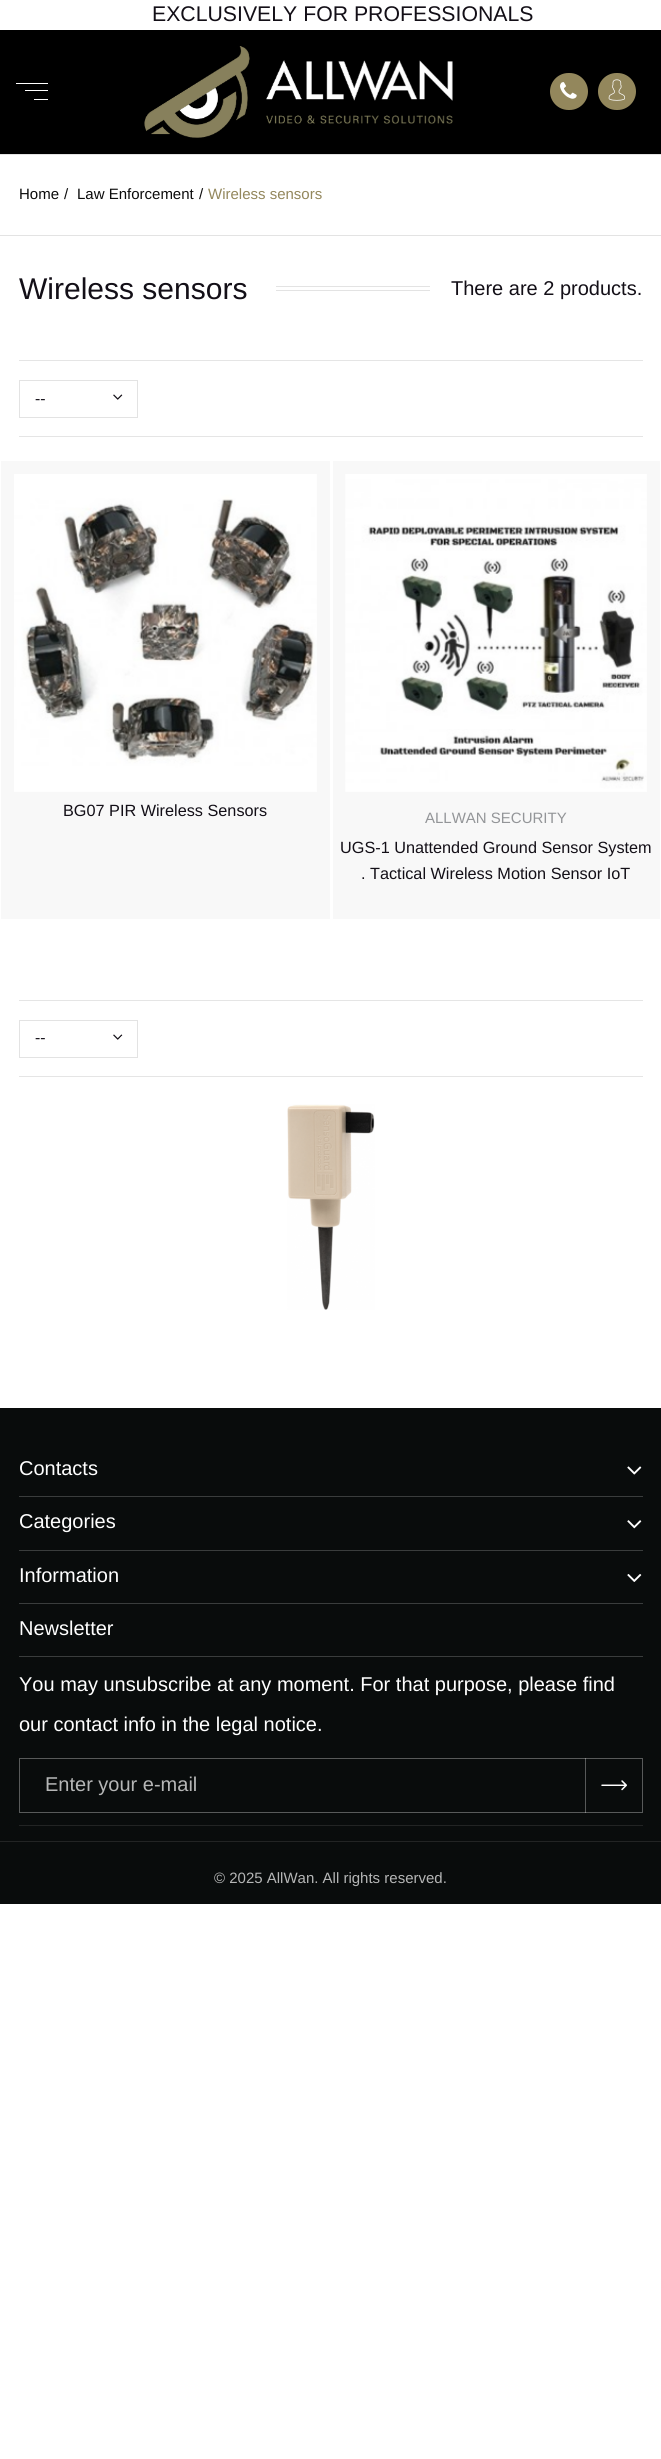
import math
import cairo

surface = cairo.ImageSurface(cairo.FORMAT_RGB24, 661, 2459)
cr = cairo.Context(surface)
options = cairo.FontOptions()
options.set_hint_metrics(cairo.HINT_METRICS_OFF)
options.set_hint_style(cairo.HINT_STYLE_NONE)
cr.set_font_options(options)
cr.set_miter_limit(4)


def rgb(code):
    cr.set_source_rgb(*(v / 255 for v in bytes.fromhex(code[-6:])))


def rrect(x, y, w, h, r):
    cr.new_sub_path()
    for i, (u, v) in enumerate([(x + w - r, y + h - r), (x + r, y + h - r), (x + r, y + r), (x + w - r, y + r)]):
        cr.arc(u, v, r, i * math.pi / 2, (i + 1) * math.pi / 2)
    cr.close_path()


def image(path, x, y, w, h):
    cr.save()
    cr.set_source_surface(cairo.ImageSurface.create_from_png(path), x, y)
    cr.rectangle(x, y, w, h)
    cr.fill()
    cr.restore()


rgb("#ffffff")
cr.paint()
for x, y, w, h, color in [
    (0, 30, 661, 124, "#000000"),
    (16, 83, 32, 1, "#ffffff"),
    (25, 90, 23, 1, "#ffffff"),
    (34, 99, 14, 1, "#ffffff"),
]:
    rgb(color)
    cr.rectangle(x, y, w, h)
    cr.fill()
image("img/1.png", 144, 46, 309, 92)
rgb("#93875c")
rrect(550, 73, 38, 37, 18.5)
cr.fill()
image("img/2.png", 560, 82, 17, 17)
rrect(598, 73, 38, 37, 18.5)
cr.fill()
image("img/3.png", 608, 79, 17, 22)
for x, y, w, h, color in [
    (0, 154, 661, 1, "#e3e3e3"),
    (0, 235, 661, 1, "#e3e3e3"),
    (276, 286, 154, 1, "#e3e3e3"),
    (276, 290, 154, 1, "#e3e3e3"),
    (19, 360, 624, 1, "#e5e5e5"),
    (19, 436, 624, 1, "#e5e5e5"),
]:
    rgb(color)
    cr.rectangle(x, y, w, h)
    cr.fill()
cr.rectangle(19.5, 380.5, 118, 37)
rgb("#e3e3e3")
cr.set_line_width(1)
cr.stroke()
image("img/4.png", 113, 394, 10, 6)
cr.new_path()
cr.move_to(121, 397.5)
cr.line_to(126, 402.5)
cr.line_to(131, 397.5)
rgb("#ffffff")
cr.set_line_width(2.5)
cr.stroke()
rgb("#f8f8f8")
cr.rectangle(1, 461, 329, 458)
cr.fill()
image("img/5.png", 14, 474, 303, 318)
cr.rectangle(333, 461, 327, 458)
cr.fill()
image("img/6.png", 345, 474, 302, 318)
rgb("#e5e5e5")
cr.rectangle(19, 1000, 624, 1)
cr.fill()
cr.rectangle(19, 1076, 624, 1)
cr.fill()
cr.rectangle(19.5, 1020.5, 118, 37)
rgb("#e3e3e3")
cr.set_line_width(1)
cr.stroke()
image("img/4.png", 113, 1034, 10, 6)
cr.new_path()
cr.move_to(121, 1037)
cr.line_to(126, 1042)
cr.line_to(131, 1037)
rgb("#ffffff")
cr.set_line_width(2.5)
cr.stroke()
image("img/7.png", 287, 1104, 88, 206)
rgb("#090c0c")
cr.rectangle(0, 1408, 661, 496)
cr.fill()
rgb("#3a3d3d")
cr.rectangle(19, 1496, 624, 1)
cr.fill()
image("img/8.png", 627, 1466, 15, 9)
cr.rectangle(19, 1550, 624, 1)
cr.fill()
image("img/9.png", 627, 1520, 15, 9)
cr.rectangle(19, 1603, 624, 1)
cr.fill()
image("img/10.png", 627, 1574, 15, 8)
cr.rectangle(19, 1656, 624, 1)
cr.fill()
cr.rectangle(19.5, 1758.5, 623, 54)
rgb("#585a5a")
cr.set_line_width(1)
cr.stroke()
cr.set_source_rgba(1, 1, 1, 0.32)
cr.rectangle(585, 1758, 1, 55)
cr.fill()
image("img/11.png", 601, 1780, 26, 11)
rgb("#222424")
cr.rectangle(19, 1825, 624, 1)
cr.fill()
cr.rectangle(0, 1841, 661, 1)
cr.fill()
cr.select_font_face("Liberation Sans")
cr.set_font_size(21.25)
rgb("#130f17")
cr.move_to(152, 21)
cr.show_text("EXCLUSIVELY FOR PROFESSIONALS")
cr.set_font_size(15)
rgb("#0b0b0b")
for x, y, s in [
    (19, 199, "Home"),
    (64, 199, "/"),
    (77, 199, "Law Enforcement"),
    (199, 199, "/"),
]:
    cr.move_to(x, y)
    cr.show_text(s)
rgb("#93875c")
cr.move_to(208, 199)
cr.show_text("Wireless sensors")
cr.set_font_size(30)
rgb("#130f17")
cr.move_to(19, 299)
cr.show_text("Wireless sensors")
cr.set_font_size(20)
cr.move_to(451, 295)
cr.show_text("There are 2 products.")
cr.select_font_face("Open Sans")
cr.set_font_size(16.25)
cr.move_to(35, 404)
cr.show_text("--")
cr.select_font_face("Liberation Sans")
cr.move_to(63, 816)
cr.show_text("BG07 PIR Wireless Sensors")
cr.set_font_size(15)
rgb("#939598")
cr.move_to(425, 823)
cr.show_text("ALLWAN SECURITY")
cr.set_font_size(16.25)
rgb("#130f17")
cr.move_to(340, 853)
cr.show_text("UGS-1 Unattended Ground Sensor System")
cr.move_to(361, 879)
cr.show_text(". Tactical Wireless Motion Sensor IoT")
cr.select_font_face("Open Sans")
cr.move_to(35, 1043)
cr.show_text("--")
cr.select_font_face("Liberation Sans")
cr.set_font_size(20)
rgb("#ffffff")
for x, y, s in [
    (19, 1475, "Contacts"),
    (19, 1528, "Categories"),
    (19, 1582, "Information"),
    (19, 1635, "Newsletter"),
    (19, 1691, "You may unsubscribe at any moment. For that purpose, please find"),
    (19, 1731, "our contact info in the legal notice."),
]:
    cr.move_to(x, y)
    cr.show_text(s)
rgb("#b5b6b6")
cr.move_to(45, 1791)
cr.show_text("Enter your e-mail")
cr.set_font_size(15)
cr.move_to(214, 1883)
cr.show_text("© 2025 AllWan. All rights reserved.")
surface.write_to_png("page.png")
